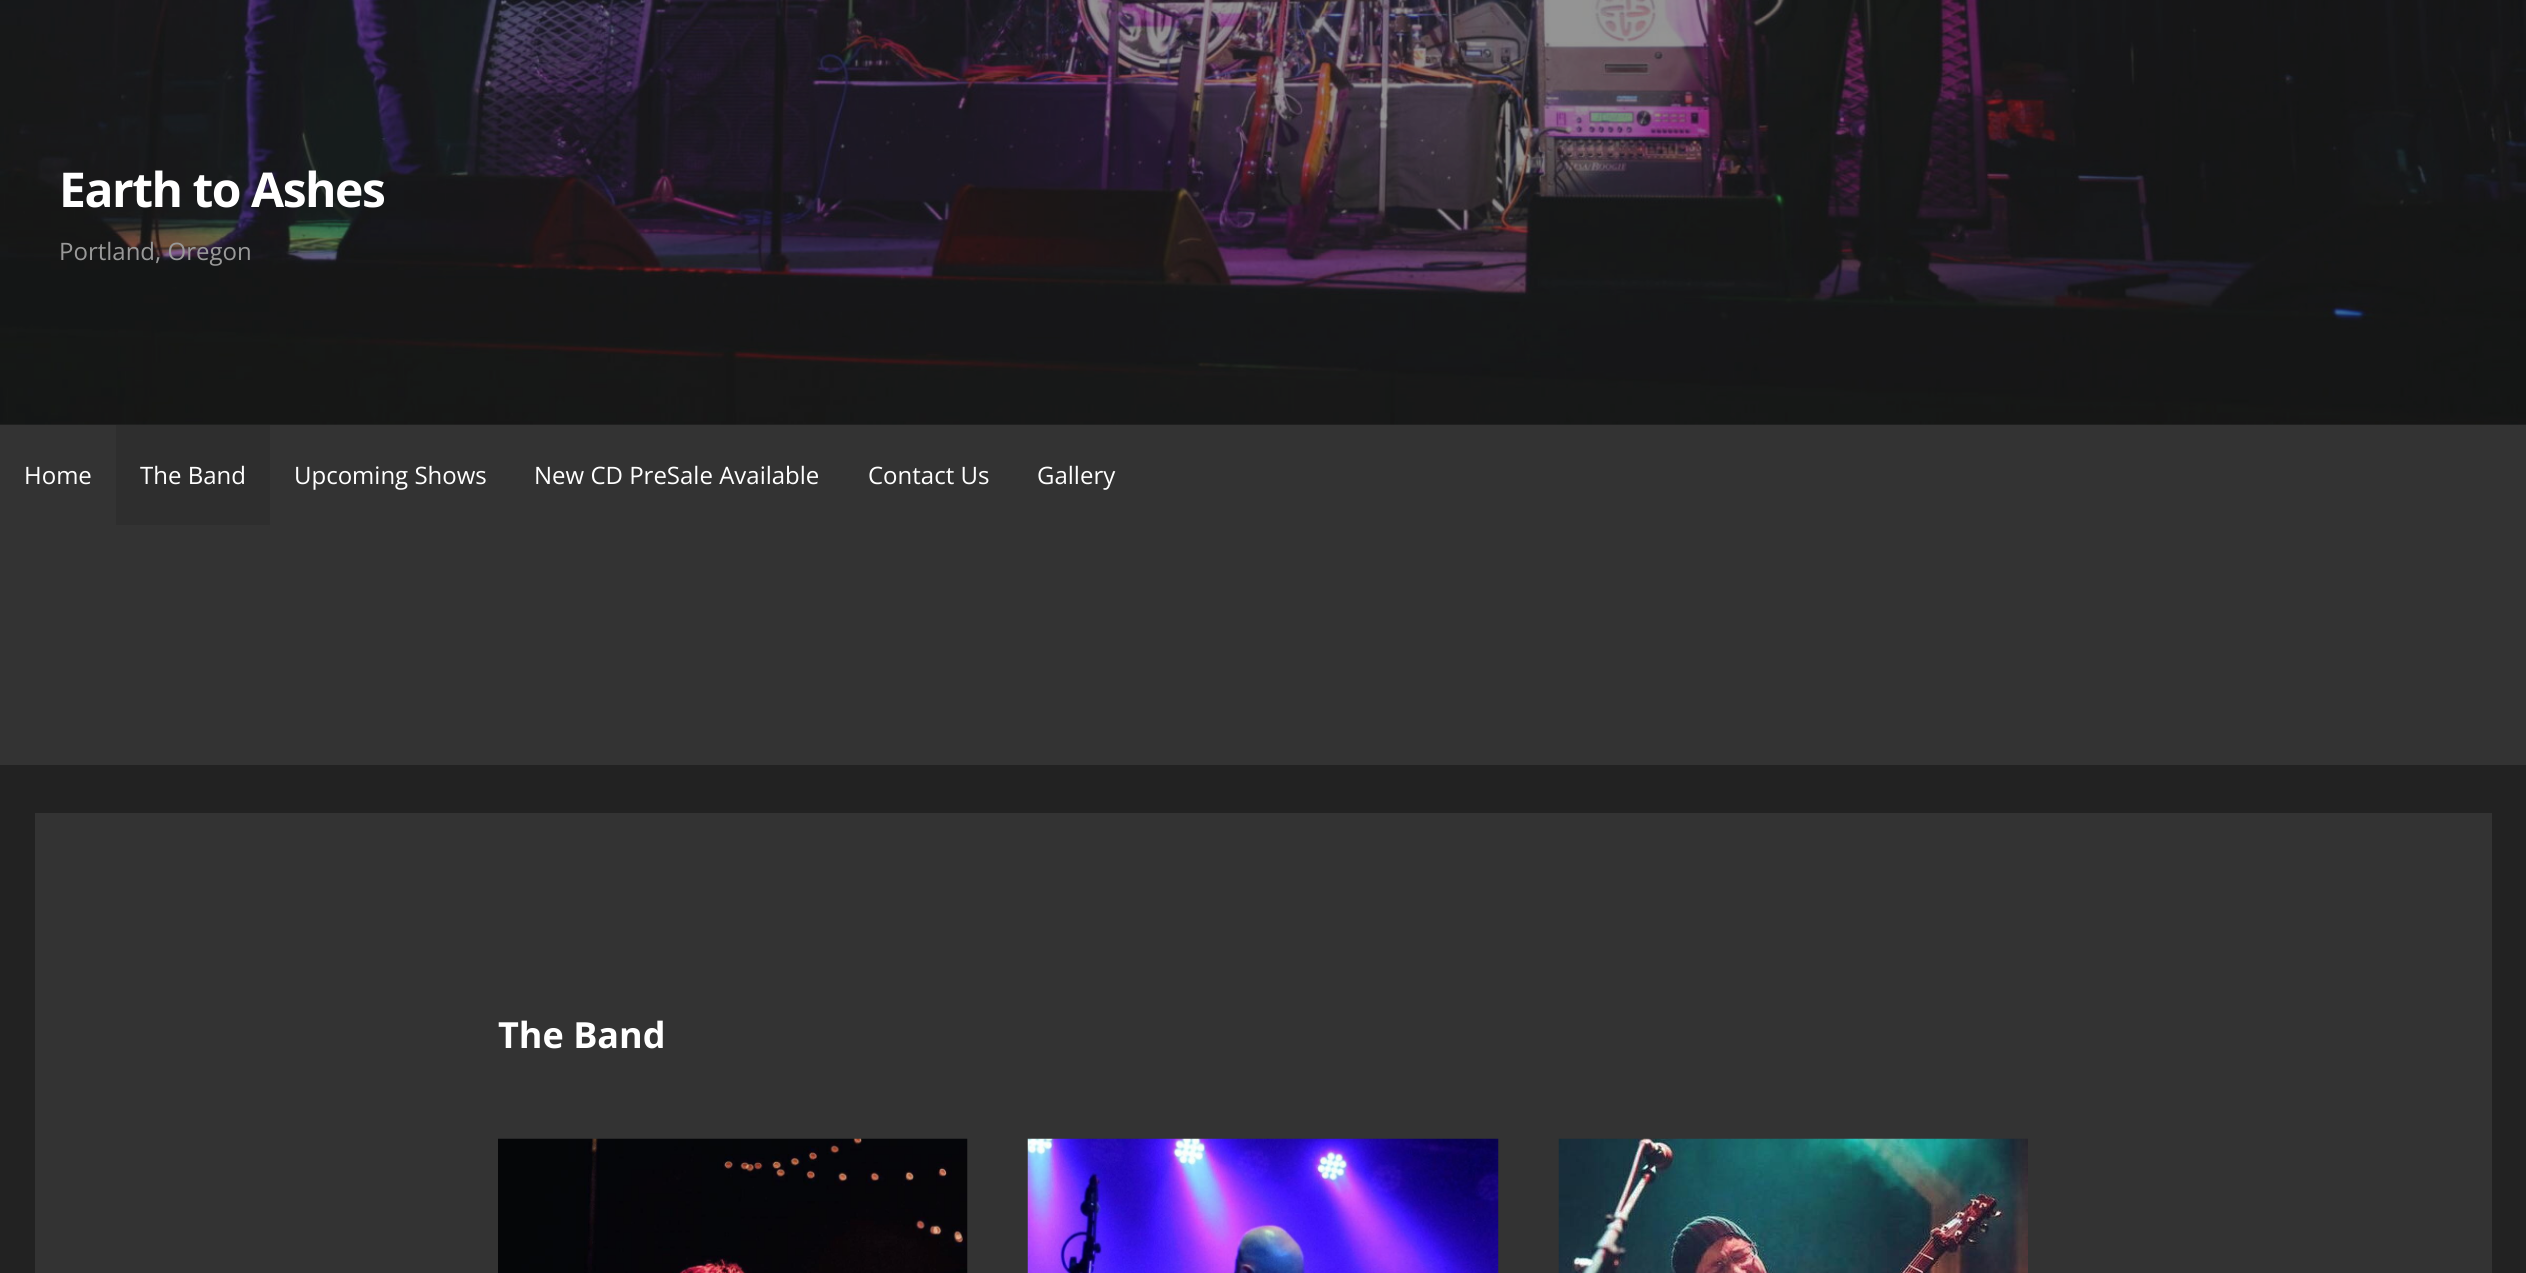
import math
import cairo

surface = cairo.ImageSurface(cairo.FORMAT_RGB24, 2526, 1273)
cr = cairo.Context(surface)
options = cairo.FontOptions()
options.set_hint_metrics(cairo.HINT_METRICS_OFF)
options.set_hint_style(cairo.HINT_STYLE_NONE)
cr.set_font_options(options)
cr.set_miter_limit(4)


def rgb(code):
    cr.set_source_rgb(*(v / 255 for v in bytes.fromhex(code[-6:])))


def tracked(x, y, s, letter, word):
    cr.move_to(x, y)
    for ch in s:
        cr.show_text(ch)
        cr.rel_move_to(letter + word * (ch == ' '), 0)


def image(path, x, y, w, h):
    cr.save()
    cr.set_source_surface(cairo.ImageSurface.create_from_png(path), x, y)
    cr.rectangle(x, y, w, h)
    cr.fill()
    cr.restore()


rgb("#222222")
cr.paint()
rgb("#282828")
cr.rectangle(0, 424, 2526, 1)
cr.fill()
image("img/1.png", 0, 0, 2526, 425)
for x, y, w, h, color in [
    (0, 425, 2526, 340, "#333333"),
    (116, 425, 154, 100, "#2e2e2e"),
    (35, 813, 2457, 460, "#333333"),
]:
    rgb(color)
    cr.rectangle(x, y, w, h)
    cr.fill()
image("img/2.png", 498, 1138, 470, 135)
image("img/3.png", 1027, 1138, 472, 135)
image("img/4.png", 1558, 1138, 470, 135)
cr.select_font_face("Open Sans", cairo.FONT_SLANT_NORMAL, cairo.FONT_WEIGHT_BOLD)
cr.set_font_size(48)
rgb("#ffffff")
tracked(59, 207, "Earth to Ashes", -1.5, 0)
cr.select_font_face("Open Sans")
cr.set_font_size(24)
rgb("#999999")
cr.move_to(59, 260)
cr.show_text("Portland, Oregon")
rgb("#ffffff")
for x, y, s in [
    (24, 484, "Home"),
    (140, 484, "The Band"),
    (294, 484, "Upcoming Shows"),
    (534, 484, "New CD PreSale Available"),
    (868, 484, "Contact Us"),
    (1037, 484, "Gallery"),
]:
    cr.move_to(x, y)
    cr.show_text(s)
cr.select_font_face("Open Sans", cairo.FONT_SLANT_NORMAL, cairo.FONT_WEIGHT_BOLD)
cr.set_font_size(36)
cr.move_to(498, 1048)
cr.show_text("The Band")
surface.write_to_png("page.png")
